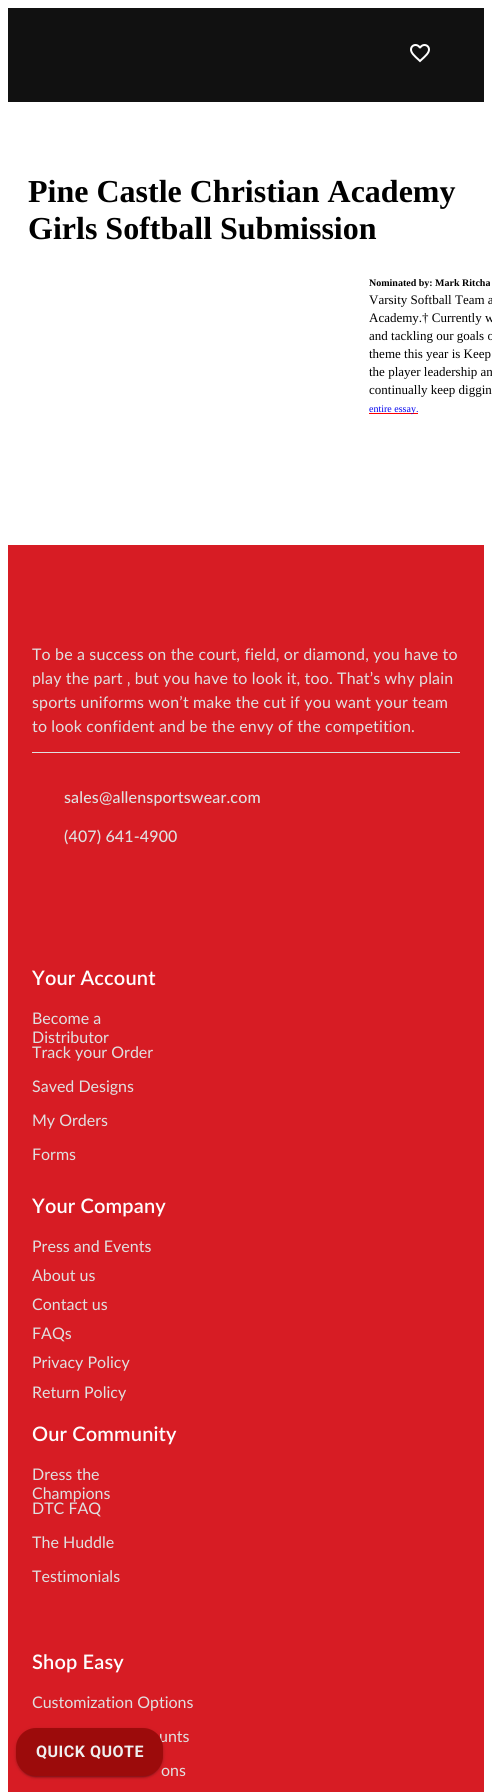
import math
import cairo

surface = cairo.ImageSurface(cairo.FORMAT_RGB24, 492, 1792)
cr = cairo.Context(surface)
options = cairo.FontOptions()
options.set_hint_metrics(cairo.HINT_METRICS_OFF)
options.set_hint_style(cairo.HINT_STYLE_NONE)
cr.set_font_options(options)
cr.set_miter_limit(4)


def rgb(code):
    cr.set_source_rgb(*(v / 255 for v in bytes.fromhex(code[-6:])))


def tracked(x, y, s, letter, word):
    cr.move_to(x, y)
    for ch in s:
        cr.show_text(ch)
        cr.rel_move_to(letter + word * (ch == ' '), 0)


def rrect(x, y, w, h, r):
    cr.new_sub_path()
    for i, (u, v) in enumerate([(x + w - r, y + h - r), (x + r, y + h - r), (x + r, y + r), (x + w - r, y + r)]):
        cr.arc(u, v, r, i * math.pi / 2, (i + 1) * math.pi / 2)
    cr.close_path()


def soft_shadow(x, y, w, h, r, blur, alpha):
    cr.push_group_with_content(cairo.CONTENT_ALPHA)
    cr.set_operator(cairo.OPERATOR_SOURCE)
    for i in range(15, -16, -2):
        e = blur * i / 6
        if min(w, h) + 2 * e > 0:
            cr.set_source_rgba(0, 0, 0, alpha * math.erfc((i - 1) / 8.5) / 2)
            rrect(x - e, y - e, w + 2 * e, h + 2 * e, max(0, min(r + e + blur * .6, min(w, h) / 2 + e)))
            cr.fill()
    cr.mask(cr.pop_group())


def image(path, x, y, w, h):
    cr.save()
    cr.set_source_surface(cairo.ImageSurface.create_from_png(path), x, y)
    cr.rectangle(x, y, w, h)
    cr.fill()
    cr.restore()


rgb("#ffffff")
cr.paint()
rgb("#111111")
cr.rectangle(8, 8, 476, 94)
cr.fill()
image("img/1.png", 410, 44, 20, 19)
for x, y, w, h, color in [
    (369, 413, 49, 1, "#ff0000"),
    (8, 545, 476, 1247, "#d71c24"),
    (32, 752, 428, 1, "#e0e0e0"),
]:
    rgb(color)
    cr.rectangle(x, y, w, h)
    cr.fill()
rgb("#000000")
soft_shadow(16, 1729, 147, 48, 20, 2.5, 0.12)
soft_shadow(16, 1730, 147, 48, 20, 1, 0.14)
soft_shadow(18, 1733, 143, 44, 18, 0.5, 0.2)
cr.select_font_face("Liberation Serif", cairo.FONT_SLANT_NORMAL, cairo.FONT_WEIGHT_BOLD)
cr.set_font_size(32)
rgb("#000000")
cr.move_to(28, 202)
cr.show_text("Pine Castle Christian Academy")
cr.move_to(28, 239)
cr.show_text("Girls Softball Submission")
cr.set_font_size(10)
cr.move_to(369, 286)
cr.show_text("Nominated by: Mark Ritcha")
cr.select_font_face("Liberation Serif")
cr.set_font_size(13)
for x, y, s in [
    (369, 304, "Varsity Softball Team a"),
    (369, 322, "Academy.† Currently w"),
    (369, 340, "and tackling our goals o"),
    (369, 358, "theme this year is Keep"),
    (369, 376, "the player leadership an"),
    (369, 394, "continually keep diggin"),
]:
    cr.move_to(x, y)
    cr.show_text(s)
cr.set_font_size(10)
rgb("#0000ee")
cr.move_to(369, 412)
cr.show_text("entire essay.")
cr.select_font_face("Lato")
cr.set_font_size(16)
rgb("#e0e0e0")
for x, y, s in [
    (32, 660, "To be a success on the court, field, or diamond, you have to"),
    (32, 684, "play the part ‚ but you have to look it, too. That’s why plain"),
    (32, 708, "sports uniforms won’t make the cut if you want your team"),
    (32, 732, "to look confident and be the envy of the competition."),
]:
    tracked(x, y, s, 0.15, 0)
cr.select_font_face("Lato Medium")
tracked(64, 803, "sales@allensportswear.com", 0.15, 0)
tracked(64, 842, "(407) 641-4900", 0.15, 0)
cr.select_font_face("Lato SemiBold")
cr.set_font_size(20)
rgb("#fefefe")
tracked(32, 985, "Your Account", 0.15, 0)
cr.select_font_face("Lato")
cr.set_font_size(16)
rgb("#e0e0e0")
for x, y, s in [
    (32, 1024, "Become a"),
    (32, 1043, "Distributor"),
    (32, 1058, "Track your Order"),
    (32, 1092, "Saved Designs"),
    (32, 1126, "My Orders"),
    (32, 1160, "Forms"),
]:
    cr.move_to(x, y)
    cr.show_text(s)
cr.select_font_face("Lato SemiBold")
cr.set_font_size(20)
rgb("#fefefe")
tracked(32, 1213, "Your Company", 0.15, 0)
cr.select_font_face("Lato")
cr.set_font_size(16)
rgb("#e0e0e0")
for x, y, s in [
    (32, 1252, "Press and Events"),
    (32, 1281, "About us"),
    (32, 1310, "Contact us"),
    (32, 1339, "FAQs"),
    (32, 1368, "Privacy Policy"),
    (32, 1398, "Return Policy"),
]:
    cr.move_to(x, y)
    cr.show_text(s)
cr.select_font_face("Lato SemiBold")
cr.set_font_size(20)
rgb("#fefefe")
tracked(32, 1441, "Our Community", 0.15, 0)
cr.select_font_face("Lato")
cr.set_font_size(16)
rgb("#e0e0e0")
for x, y, s in [
    (32, 1480, "Dress the"),
    (32, 1499, "Champions"),
    (32, 1514, "DTC FAQ"),
    (32, 1548, "The Huddle"),
    (32, 1582, "Testimonials"),
]:
    cr.move_to(x, y)
    cr.show_text(s)
cr.select_font_face("Lato SemiBold")
cr.set_font_size(20)
rgb("#fefefe")
tracked(32, 1669, "Shop Easy", 0.15, 0)
cr.select_font_face("Lato")
cr.set_font_size(16)
rgb("#e0e0e0")
for x, y, s in [
    (32, 1708, "Customization Options"),
    (159, 1742, "unts"),
    (161, 1776, "ons"),
]:
    cr.move_to(x, y)
    cr.show_text(s)
rgb("#9c0b0b")
rrect(16, 1728, 147, 48, 20)
cr.fill()
cr.select_font_face("Roboto", cairo.FONT_SLANT_NORMAL, cairo.FONT_WEIGHT_BOLD)
rgb("#efefef")
tracked(36, 1757, "QUICK QUOTE", 0.5, 0)
surface.write_to_png("page.png")
